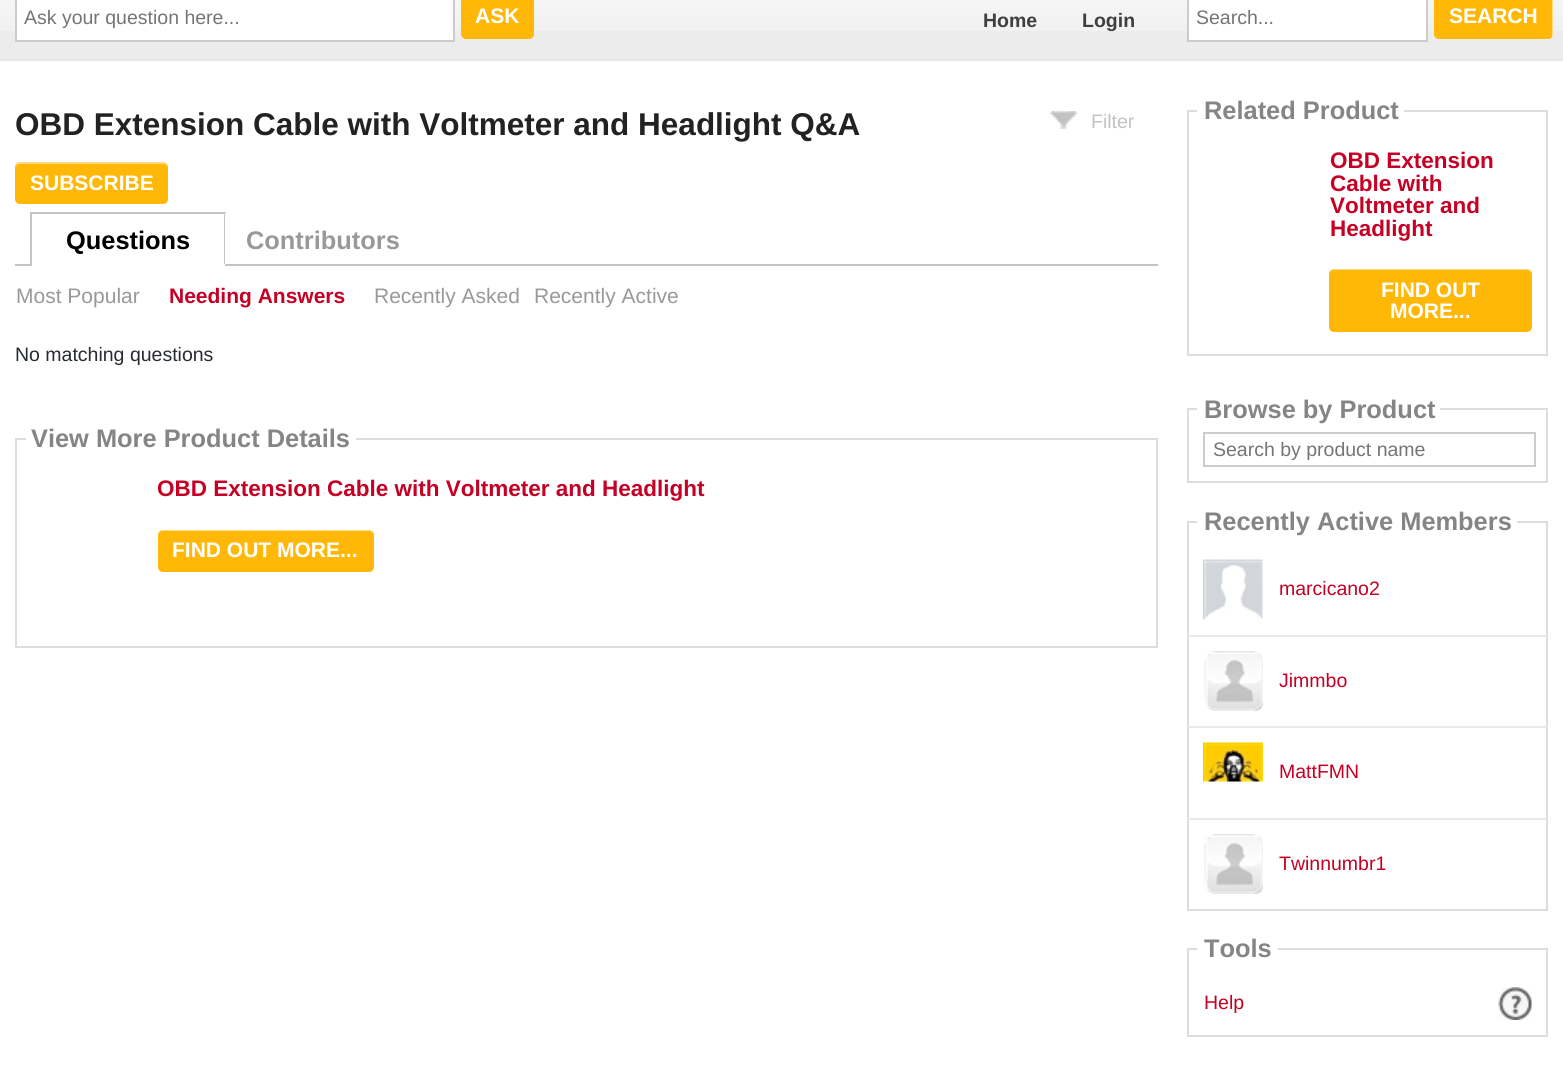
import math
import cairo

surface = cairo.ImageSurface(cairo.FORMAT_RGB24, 1563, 1090)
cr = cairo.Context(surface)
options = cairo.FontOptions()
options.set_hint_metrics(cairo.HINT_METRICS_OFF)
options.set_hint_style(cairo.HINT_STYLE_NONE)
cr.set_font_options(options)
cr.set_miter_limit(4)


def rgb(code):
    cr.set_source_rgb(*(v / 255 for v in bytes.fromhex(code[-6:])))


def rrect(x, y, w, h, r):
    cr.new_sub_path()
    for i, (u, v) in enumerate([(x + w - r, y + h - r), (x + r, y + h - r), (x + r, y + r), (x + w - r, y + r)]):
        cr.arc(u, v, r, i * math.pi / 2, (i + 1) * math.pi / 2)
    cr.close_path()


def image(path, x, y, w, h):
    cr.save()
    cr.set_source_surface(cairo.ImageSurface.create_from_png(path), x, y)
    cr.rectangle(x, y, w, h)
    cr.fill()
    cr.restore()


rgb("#ffffff")
cr.paint()
rgb("#ececec")
cr.rectangle(0, 31, 1563, 28)
cr.fill()
image("img/1.png", 0, 0, 1563, 31)
rgb("#e6e6e6")
cr.rectangle(0, 59, 1563, 2)
cr.fill()
rgb("#ffffff")
cr.rectangle(16, -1, 438, 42)
cr.fill_preserve()
rgb("#cccccc")
cr.stroke()
rgb("#ffb808")
rrect(461, -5, 73, 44, 5)
cr.fill()
rgb("#ffffff")
cr.rectangle(1188, -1, 239, 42)
cr.fill_preserve()
rgb("#cccccc")
cr.stroke()
rgb("#ffb808")
rrect(1434, -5, 119, 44, 5)
cr.fill()
cr.set_source_rgba(1, 1, 1, 0.5)
cr.new_path()
cr.move_to(1438, -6)
cr.line_to(1548, -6)
cr.curve_to(1553, -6, 1552, 2, 1552, 4)
cr.line_to(1552, 37)
cr.curve_to(1553, 36, 1553, 35, 1553, 34)
cr.line_to(1553, -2)
cr.curve_to(1553, -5, 1551, -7, 1548, -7)
cr.line_to(1439, -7)
cr.curve_to(1436, -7, 1434, -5, 1434, -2)
cr.curve_to(1434, -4, 1436, -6, 1438, -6)
cr.close_path()
cr.fill()
rgb("#ffb808")
rrect(15, 162, 153, 42, 5)
cr.fill()
cr.set_source_rgba(1, 1, 1, 0.5)
cr.new_path()
cr.move_to(20, 164)
cr.line_to(164, 164)
cr.curve_to(166, 164, 168, 166, 168, 168)
cr.line_to(168, 167)
cr.curve_to(168, 164, 166, 162, 163, 162)
cr.line_to(20, 162)
cr.curve_to(17, 162, 15, 164, 15, 167)
cr.line_to(15, 168)
cr.curve_to(15, 166, 17, 164, 20, 164)
cr.close_path()
cr.fill()
image("img/2.png", 1050, 111, 29, 18)
for x, y, w, h, color in [
    (30, 212, 195, 2, "#c4c4c4"),
    (224, 212, 2, 54, "#c4c4c4"),
    (224, 264, 1, 2, "#ffffff"),
    (30, 212, 2, 54, "#c4c4c4"),
    (225, 213, 1, 51, "#ffffff"),
    (225, 264, 933, 2, "#c4c4c4"),
    (15, 264, 15, 2, "#c4c4c4"),
]:
    rgb(color)
    cr.rectangle(x, y, w, h)
    cr.fill()
cr.rectangle(16, 439, 1141, 208)
rgb("#dddddd")
cr.stroke()
rgb("#ffffff")
cr.rectangle(26, 438, 330, 2)
cr.fill()
rgb("#ffb808")
rrect(158, 530, 216, 42, 5)
cr.fill()
cr.set_source_rgba(1, 1, 1, 0.5)
cr.new_path()
cr.move_to(162, 531)
cr.line_to(369, 531)
cr.curve_to(371, 531, 374, 533, 374, 536)
cr.curve_to(374, 533, 372, 530, 369, 530)
cr.line_to(162, 530)
cr.curve_to(159, 531, 158, 533, 158, 536)
cr.curve_to(158, 533, 160, 531, 162, 531)
cr.close_path()
cr.fill()
cr.rectangle(1188, 111, 359, 244)
rgb("#dddddd")
cr.stroke()
rgb("#ffffff")
cr.rectangle(1197, 110, 207, 2)
cr.fill()
rgb("#ffb808")
rrect(1329, 269, 203, 63, 5)
cr.fill()
cr.set_source_rgba(1, 1, 1, 0.5)
cr.new_path()
cr.move_to(1334, 270)
cr.line_to(1527, 270)
cr.curve_to(1529, 270, 1532, 272, 1532, 274)
cr.curve_to(1532, 271, 1530, 269, 1527, 269)
cr.line_to(1334, 269)
cr.curve_to(1331, 269, 1329, 271, 1329, 274)
cr.curve_to(1329, 272, 1331, 270, 1334, 270)
cr.close_path()
cr.fill()
cr.rectangle(1188, 409, 359, 73)
rgb("#dddddd")
cr.stroke()
rgb("#ffffff")
cr.rectangle(1197, 408, 243, 2)
cr.fill()
cr.rectangle(1204, 433, 331, 33)
rgb("#cccccc")
cr.stroke()
cr.rectangle(1188, 522, 359, 388)
rgb("#dddddd")
cr.stroke()
rgb("#ffffff")
cr.rectangle(1197, 521, 320, 2)
cr.fill()
rgb("#e9e9e9")
cr.rectangle(1188, 635, 359, 2)
cr.fill()
image("img/3.png", 1203, 559, 60, 61)
cr.rectangle(1188, 726, 359, 2)
cr.fill()
image("img/4.png", 1204, 651, 59, 60)
cr.rectangle(1188, 818, 359, 2)
cr.fill()
image("img/5.png", 1203, 742, 60, 40)
image("img/6.png", 1204, 834, 59, 60)
cr.rectangle(1188, 949, 359, 87)
rgb("#dddddd")
cr.stroke()
rgb("#ffffff")
cr.rectangle(1197, 948, 81, 2)
cr.fill()
image("img/7.png", 1498, 987, 34, 33)
cr.select_font_face("Liberation Sans")
cr.set_font_size(19.5)
rgb("#757575")
cr.move_to(24, 24)
cr.show_text("Ask your question here...")
cr.select_font_face("Liberation Sans", cairo.FONT_SLANT_NORMAL, cairo.FONT_WEIGHT_BOLD)
cr.set_font_size(21)
rgb("#ffffff")
cr.move_to(475, 23)
cr.show_text("ASK")
cr.set_font_size(19.5)
rgb("#3f3f40")
cr.move_to(983, 27)
cr.show_text("Home")
cr.move_to(1082, 27)
cr.show_text("Login")
cr.select_font_face("Liberation Sans")
rgb("#757575")
cr.move_to(1196, 24)
cr.show_text("Search...")
cr.select_font_face("Liberation Sans", cairo.FONT_SLANT_NORMAL, cairo.FONT_WEIGHT_BOLD)
cr.set_font_size(21)
rgb("#ffffff")
cr.move_to(1449, 23)
cr.show_text("SEARCH")
cr.set_font_size(31.5)
rgb("#222222")
cr.move_to(15, 135)
cr.show_text("OBD Extension Cable with Voltmeter and Headlight Q&A")
cr.set_font_size(21)
rgb("#ffffff")
cr.move_to(30, 190)
cr.show_text("SUBSCRIBE")
cr.select_font_face("Liberation Sans")
cr.set_font_size(19.5)
rgb("#c3c1c1")
cr.move_to(1091, 128)
cr.show_text("Filter")
cr.select_font_face("Liberation Sans", cairo.FONT_SLANT_NORMAL, cairo.FONT_WEIGHT_BOLD)
cr.set_font_size(25.4)
rgb("#000000")
cr.move_to(66, 249)
cr.show_text("Questions")
rgb("#999999")
cr.move_to(246, 249)
cr.show_text("Contributors")
cr.select_font_face("Liberation Sans")
cr.set_font_size(21)
cr.move_to(16, 303)
cr.show_text("Most Popular")
cr.select_font_face("Liberation Sans", cairo.FONT_SLANT_NORMAL, cairo.FONT_WEIGHT_BOLD)
rgb("#c50024")
cr.move_to(169, 303)
cr.show_text("Needing Answers")
cr.select_font_face("Liberation Sans")
rgb("#999999")
cr.move_to(374, 303)
cr.show_text("Recently Asked")
cr.move_to(534, 303)
cr.show_text("Recently Active")
cr.set_font_size(19.5)
rgb("#282b30")
cr.move_to(15, 361)
cr.show_text("No matching questions")
cr.select_font_face("Liberation Sans", cairo.FONT_SLANT_NORMAL, cairo.FONT_WEIGHT_BOLD)
cr.set_font_size(25.4)
rgb("#858585")
cr.move_to(31, 447)
cr.show_text("View More Product Details")
cr.set_font_size(22.5)
rgb("#c50024")
cr.move_to(157, 496)
cr.show_text("OBD Extension Cable with Voltmeter and Headlight")
cr.set_font_size(21)
rgb("#ffffff")
cr.move_to(172, 557)
cr.show_text("FIND OUT MORE...")
cr.set_font_size(25.4)
rgb("#858585")
cr.move_to(1204, 119)
cr.show_text("Related Product")
cr.set_font_size(22.5)
rgb("#c50024")
for x, y, s in [
    (1330, 168, "OBD Extension"),
    (1330, 191, "Cable with"),
    (1330, 213, "Voltmeter and"),
    (1330, 236, "Headlight"),
]:
    cr.move_to(x, y)
    cr.show_text(s)
cr.set_font_size(21)
rgb("#ffffff")
cr.move_to(1381, 297)
cr.show_text("FIND OUT")
cr.move_to(1390, 318)
cr.show_text("MORE...")
cr.set_font_size(25.4)
rgb("#858585")
cr.move_to(1204, 418)
cr.show_text("Browse by Product")
cr.select_font_face("Liberation Sans")
cr.set_font_size(19.5)
rgb("#757575")
cr.move_to(1213, 456)
cr.show_text("Search by product name")
cr.select_font_face("Liberation Sans", cairo.FONT_SLANT_NORMAL, cairo.FONT_WEIGHT_BOLD)
cr.set_font_size(25.4)
rgb("#858585")
cr.move_to(1204, 530)
cr.show_text("Recently Active Members")
cr.select_font_face("Liberation Sans")
cr.set_font_size(19.5)
rgb("#c50024")
for x, y, s in [
    (1279, 595, "marcicano2"),
    (1279, 687, "Jimmbo"),
    (1279, 778, "MattFMN"),
    (1279, 870, "Twinnumbr1"),
]:
    cr.move_to(x, y)
    cr.show_text(s)
cr.select_font_face("Liberation Sans", cairo.FONT_SLANT_NORMAL, cairo.FONT_WEIGHT_BOLD)
cr.set_font_size(25.4)
rgb("#858585")
cr.move_to(1204, 957)
cr.show_text("Tools")
cr.select_font_face("Liberation Sans")
cr.set_font_size(19.5)
rgb("#c50024")
cr.move_to(1204, 1009)
cr.show_text("Help")
surface.write_to_png("page.png")
